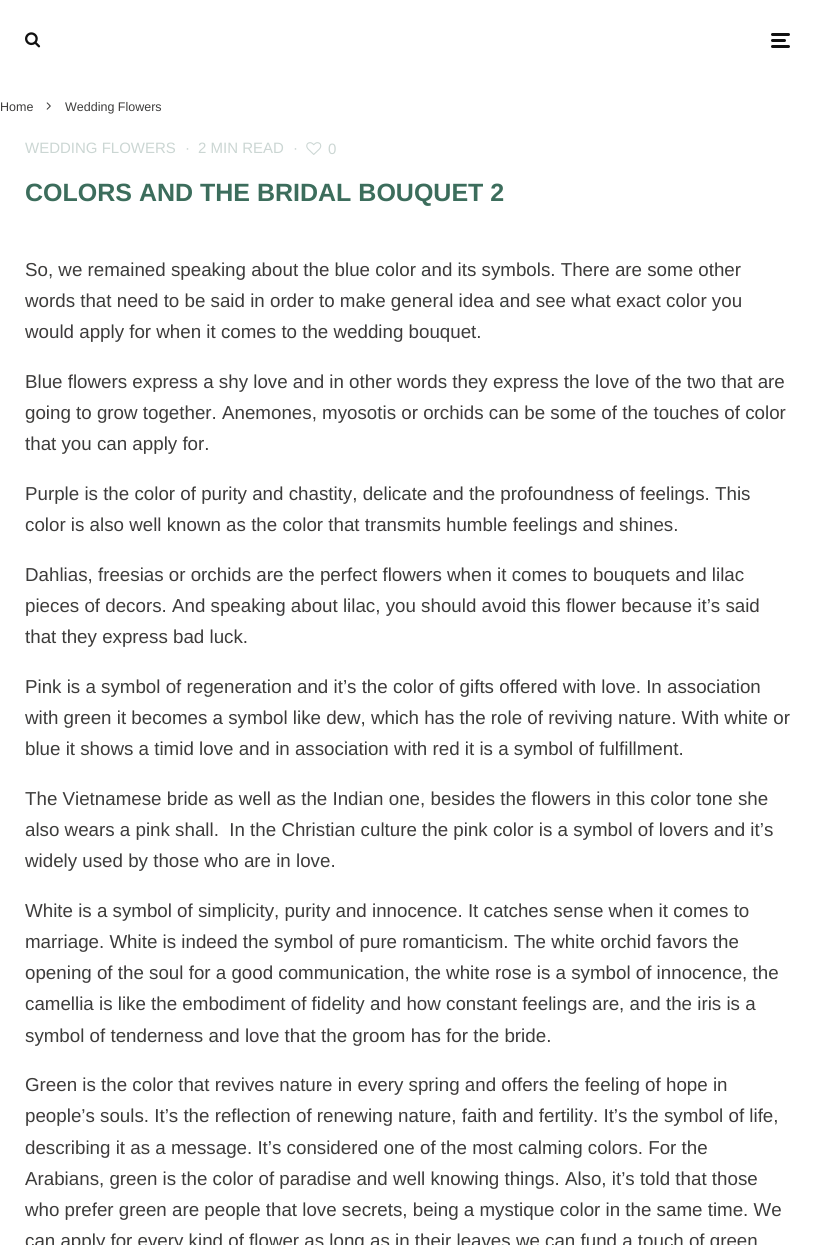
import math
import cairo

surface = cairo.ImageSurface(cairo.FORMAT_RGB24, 814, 1245)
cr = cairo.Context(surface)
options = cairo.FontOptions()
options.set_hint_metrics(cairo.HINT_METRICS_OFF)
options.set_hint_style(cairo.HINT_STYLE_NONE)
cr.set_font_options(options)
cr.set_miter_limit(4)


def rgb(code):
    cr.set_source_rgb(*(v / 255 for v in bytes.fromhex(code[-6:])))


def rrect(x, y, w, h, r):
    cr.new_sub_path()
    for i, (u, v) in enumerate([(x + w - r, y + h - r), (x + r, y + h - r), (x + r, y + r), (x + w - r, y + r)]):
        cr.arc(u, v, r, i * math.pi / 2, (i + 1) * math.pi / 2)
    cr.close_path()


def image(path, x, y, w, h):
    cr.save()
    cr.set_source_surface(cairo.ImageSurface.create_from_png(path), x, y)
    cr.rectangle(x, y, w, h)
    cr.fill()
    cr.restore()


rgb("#ffffff")
cr.paint()
image("img/1.png", 25, 32, 16, 16)
rgb("#111111")
rrect(771, 39, 15, 3, 1.5)
cr.fill()
rrect(771, 33, 19, 3, 1.5)
cr.fill()
rrect(771, 45, 19, 3, 1.5)
cr.fill()
image("img/2.png", 46, 102, 5, 8)
image("img/3.png", 306, 142, 16, 13)
cr.select_font_face("Liberation Sans")
cr.set_font_size(12.5)
rgb("#3d3c3b")
cr.move_to(0, 111)
cr.show_text("Home")
cr.move_to(65, 111)
cr.show_text("Wedding Flowers")
cr.set_font_size(15)
rgb("#cbd6d3")
for x, y, s in [
    (25, 153, "WEDDING FLOWERS"),
    (185, 153, "·"),
    (198, 153, "2 MIN READ"),
    (293, 153, "·"),
    (328, 154, "0"),
]:
    cr.move_to(x, y)
    cr.show_text(s)
cr.select_font_face("Liberation Sans", cairo.FONT_SLANT_NORMAL, cairo.FONT_WEIGHT_BOLD)
cr.set_font_size(25)
rgb("#3c6d5c")
cr.move_to(25, 201)
cr.show_text("COLORS AND THE BRIDAL BOUQUET 2")
cr.select_font_face("Liberation Sans")
cr.set_font_size(18.75)
rgb("#3d3c3b")
for x, y, s in [
    (25, 276, "So, we remained speaking about the blue color and its symbols. There are some other"),
    (25, 307, "words that need to be said in order to make general idea and see what exact color you"),
    (25, 338, "would apply for when it comes to the wedding bouquet."),
    (25, 388, "Blue flowers express a shy love and in other words they express the love of the two that are"),
    (25, 419, "going to grow together. Anemones, myosotis or orchids can be some of the touches of color"),
    (25, 450, "that you can apply for."),
    (25, 500, "Purple is the color of purity and chastity, delicate and the profoundness of feelings. This"),
    (25, 531, "color is also well known as the color that transmits humble feelings and shines."),
    (25, 581, "Dahlias, freesias or orchids are the perfect flowers when it comes to bouquets and lilac"),
    (25, 612, "pieces of decors. And speaking about lilac, you should avoid this flower because it’s said"),
    (25, 643, "that they express bad luck."),
    (25, 693, "Pink is a symbol of regeneration and it’s the color of gifts offered with love. In association"),
    (25, 724, "with green it becomes a symbol like dew, which has the role of reviving nature. With white or"),
    (25, 755, "blue it shows a timid love and in association with red it is a symbol of fulfillment."),
    (25, 805, "The Vietnamese bride as well as the Indian one, besides the flowers in this color tone she"),
    (25, 836, "also wears a pink shall.  In the Christian culture the pink color is a symbol of lovers and it’s"),
    (25, 867, "widely used by those who are in love."),
    (25, 917, "White is a symbol of simplicity, purity and innocence. It catches sense when it comes to"),
    (25, 948, "marriage. White is indeed the symbol of pure romanticism. The white orchid favors the"),
    (25, 979, "opening of the soul for a good communication, the white rose is a symbol of innocence, the"),
    (25, 1010, "camellia is like the embodiment of fidelity and how constant feelings are, and the iris is a"),
    (25, 1042, "symbol of tenderness and love that the groom has for the bride."),
    (25, 1091, "Green is the color that revives nature in every spring and offers the feeling of hope in"),
    (25, 1122, "people’s souls. It’s the reflection of renewing nature, faith and fertility. It’s the symbol of life,"),
    (25, 1154, "describing it as a message. It’s considered one of the most calming colors. For the"),
    (25, 1185, "Arabians, green is the color of paradise and well knowing things. Also, it’s told that those"),
    (25, 1216, "who prefer green are people that love secrets, being a mystique color in the same time. We"),
    (25, 1247, "can apply for every kind of flower as long as in their leaves we can fund a touch of green"),
]:
    cr.move_to(x, y)
    cr.show_text(s)
surface.write_to_png("page.png")
